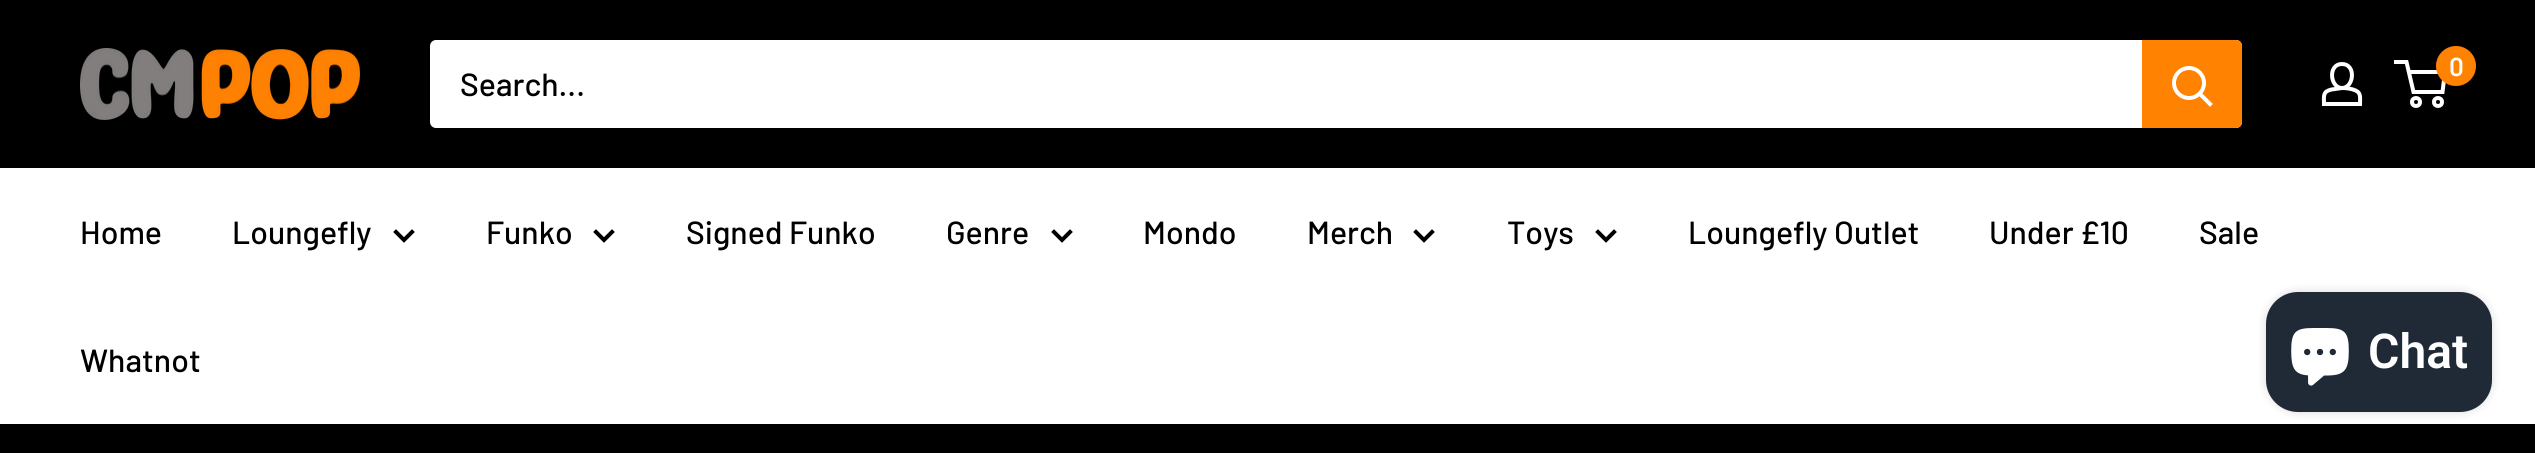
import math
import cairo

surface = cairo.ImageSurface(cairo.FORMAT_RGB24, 2535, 453)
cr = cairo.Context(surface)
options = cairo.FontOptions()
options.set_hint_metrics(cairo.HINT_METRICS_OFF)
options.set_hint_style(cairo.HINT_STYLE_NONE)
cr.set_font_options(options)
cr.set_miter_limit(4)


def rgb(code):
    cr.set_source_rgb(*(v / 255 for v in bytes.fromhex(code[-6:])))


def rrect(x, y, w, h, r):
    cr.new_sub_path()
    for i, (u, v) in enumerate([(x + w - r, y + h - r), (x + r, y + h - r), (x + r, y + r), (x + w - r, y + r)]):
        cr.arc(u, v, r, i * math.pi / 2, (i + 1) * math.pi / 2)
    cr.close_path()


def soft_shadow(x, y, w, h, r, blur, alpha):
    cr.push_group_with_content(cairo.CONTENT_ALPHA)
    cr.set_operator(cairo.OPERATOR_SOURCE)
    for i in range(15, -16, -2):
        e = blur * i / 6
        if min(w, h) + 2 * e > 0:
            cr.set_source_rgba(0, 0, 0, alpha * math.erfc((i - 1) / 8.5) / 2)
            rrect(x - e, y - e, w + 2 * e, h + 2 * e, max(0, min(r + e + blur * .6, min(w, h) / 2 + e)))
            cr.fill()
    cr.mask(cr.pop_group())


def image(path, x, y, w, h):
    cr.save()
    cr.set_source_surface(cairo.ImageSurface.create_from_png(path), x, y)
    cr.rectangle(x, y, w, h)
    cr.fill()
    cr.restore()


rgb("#000000")
cr.paint()
image("img/1.png", 80, 48, 280, 72)
cr.new_path()
cr.move_to(2342, 88)
cr.curve_to(2346, 88, 2349.5, 88.5, 2353, 89.5)
cr.curve_to(2361.5, 92, 2360, 96.5, 2360, 104)
cr.line_to(2324, 104)
cr.curve_to(2324, 96, 2322.5, 91.5, 2331.5, 89.5)
cr.close_path()
cr.move_to(2342, 88)
cr.curve_to(2330, 88, 2327.5, 64, 2342, 64)
cr.curve_to(2356.5, 64, 2354, 88, 2342, 88)
cr.close_path()
rgb("#ffffff")
cr.set_line_width(4)
cr.stroke()
cr.arc(2416, 102, 4, 0, 2 * math.pi)
cr.stroke()
cr.arc(2438, 102, 4, 0, 2 * math.pi)
cr.stroke()
cr.new_path()
cr.move_to(2408.5, 72)
cr.line_to(2445, 72)
cr.line_to(2442.5, 92)
cr.line_to(2413.5, 92)
cr.line_to(2406.5, 62)
cr.line_to(2394, 62)
cr.stroke()
rgb("#ff8201")
cr.arc(2456, 66, 20, 0, 2 * math.pi)
cr.fill()
rgb("#ffffff")
rrect(430, 40, 1812, 88, 6)
cr.fill()
rgb("#ff8201")
cr.new_path()
cr.move_to(2142, 40)
cr.line_to(2236, 40)
cr.curve_to(2239.5, 40, 2242, 42.5, 2242, 46)
cr.line_to(2242, 122)
cr.curve_to(2242, 125.5, 2239.5, 128, 2236, 128)
cr.line_to(2142, 128)
cr.close_path()
cr.fill()
cr.new_path()
cr.move_to(2210, 104)
cr.line_to(2200, 94)
rgb("#ffffff")
cr.set_line_cap(cairo.LINE_CAP_SQUARE)
cr.stroke()
cr.arc(2189, 83, 15, 0, 2 * math.pi)
cr.set_line_cap(cairo.LINE_CAP_BUTT)
cr.stroke()
cr.rectangle(0, 168, 2535, 256)
cr.fill()
cr.new_path()
cr.move_to(412, 232)
cr.line_to(404, 240)
cr.line_to(396, 232)
rgb("#000000")
cr.set_line_cap(cairo.LINE_CAP_SQUARE)
cr.stroke()
cr.new_path()
cr.move_to(612, 232)
cr.line_to(604, 240)
cr.line_to(596, 232)
cr.stroke()
cr.new_path()
cr.move_to(1070, 232)
cr.line_to(1062, 240)
cr.line_to(1054, 232)
cr.stroke()
cr.new_path()
cr.move_to(1432, 232)
cr.line_to(1424, 240)
cr.line_to(1416, 232)
cr.stroke()
cr.new_path()
cr.move_to(1614, 232)
cr.line_to(1606, 240)
cr.line_to(1598, 232)
cr.stroke()
rgb("#000000")
soft_shadow(2266, 292, 226, 120, 32, 5, 0.15)
rgb("#202a36")
rrect(2266, 292, 226, 120, 32)
cr.fill()
image("img/2.png", 2291, 328, 58, 58)
cr.select_font_face("Barlow SemiBold")
cr.set_font_size(26)
rgb("#ffffff")
cr.move_to(2449, 76)
cr.show_text("0")
cr.select_font_face("Barlow Medium")
cr.set_font_size(32)
rgb("#000000")
for x, y, s in [
    (460, 96, "Search..."),
    (80, 244, "Home"),
    (232, 244, "Loungefly"),
    (486, 244, "Funko"),
    (686, 244, "Signed Funko"),
    (946, 244, "Genre"),
    (1143, 244, "Mondo"),
    (1307, 244, "Merch"),
    (1507, 244, "Toys"),
    (1688, 244, "Loungefly Outlet"),
    (1989, 244, "Under £10"),
    (2199, 244, "Sale"),
    (80, 372, "Whatnot"),
]:
    cr.move_to(x, y)
    cr.show_text(s)
cr.select_font_face("Roboto SemiBold")
cr.set_font_size(48)
rgb("#ffffff")
cr.move_to(2368, 368)
cr.show_text("Chat")
surface.write_to_png("page.png")
